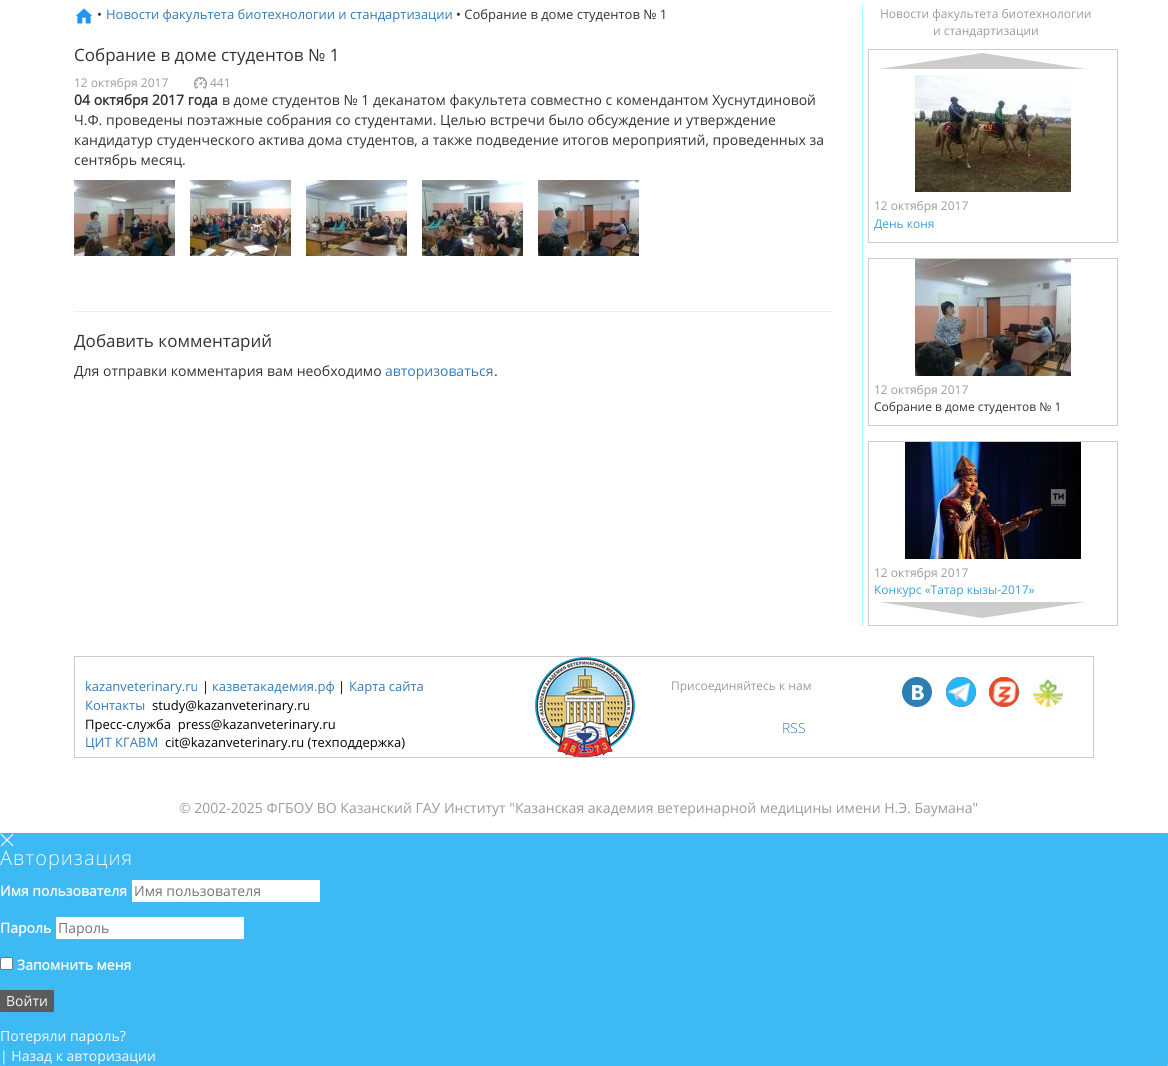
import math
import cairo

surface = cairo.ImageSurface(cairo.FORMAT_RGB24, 1168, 1066)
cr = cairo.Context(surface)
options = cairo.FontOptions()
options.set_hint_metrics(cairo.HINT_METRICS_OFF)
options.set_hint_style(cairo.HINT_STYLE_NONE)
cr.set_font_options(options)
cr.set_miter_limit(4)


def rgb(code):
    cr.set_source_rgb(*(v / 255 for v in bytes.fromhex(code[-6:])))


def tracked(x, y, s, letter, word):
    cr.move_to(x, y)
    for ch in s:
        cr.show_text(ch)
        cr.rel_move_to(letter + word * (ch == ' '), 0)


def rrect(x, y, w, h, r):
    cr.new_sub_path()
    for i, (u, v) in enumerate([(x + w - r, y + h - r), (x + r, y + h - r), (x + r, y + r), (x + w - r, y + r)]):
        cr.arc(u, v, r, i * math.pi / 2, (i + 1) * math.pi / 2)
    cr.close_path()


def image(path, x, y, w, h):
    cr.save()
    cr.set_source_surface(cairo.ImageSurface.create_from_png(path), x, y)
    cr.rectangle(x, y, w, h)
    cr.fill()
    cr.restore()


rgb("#ffffff")
cr.paint()
image("img/1.png", 75, 8, 18, 16)
image("img/2.png", 194, 77, 13, 12)
image("img/3.png", 74, 180, 101, 76)
image("img/4.png", 190, 180, 101, 76)
image("img/5.png", 306, 180, 101, 76)
image("img/6.png", 422, 180, 101, 76)
image("img/7.png", 538, 180, 101, 76)
rgb("#eeeeee")
cr.rectangle(74, 311, 758, 1)
cr.fill()
rgb("#9fffff")
cr.rectangle(862, 5, 1, 621)
cr.fill()
cr.rectangle(868.5, 49.5, 249, 193)
rgb("#cccccc")
cr.set_line_width(1)
cr.stroke()
cr.new_path()
cr.move_to(1085, 69)
cr.line_to(879, 69)
cr.line_to(982, 53)
cr.close_path()
cr.fill()
image("img/8.png", 915, 75, 156, 117)
cr.rectangle(868.5, 258.5, 249, 167)
cr.stroke()
image("img/9.png", 915, 259, 156, 117)
cr.rectangle(868.5, 441.5, 249, 184)
cr.stroke()
image("img/10.png", 905, 442, 176, 117)
cr.new_path()
cr.move_to(879, 602)
cr.line_to(1085, 602)
cr.line_to(982, 618)
cr.close_path()
cr.fill()
cr.rectangle(74.5, 656.5, 1019, 101)
cr.stroke()
image("img/11.png", 535, 657, 100, 100)
rgb("#2c7fb0")
cr.arc(917, 692, 15, 0, 2 * math.pi)
cr.fill()
image("img/12.png", 912, 685, 12, 15)
rgb("#e02d26")
cr.arc(961, 692, 15, 0, 2 * math.pi)
cr.fill()
image("img/13.png", 946, 677, 30, 30)
rgb("#2c7fb0")
cr.arc(1004, 692, 15, 0, 2 * math.pi)
cr.fill()
image("img/14.png", 989, 677, 30, 30)
image("img/15.png", 1033, 677, 30, 30)
rgb("#3dbaf4")
rrect(0, 833, 1168, 233, 1)
cr.fill()
cr.new_path()
cr.move_to(1, 834)
cr.line_to(13, 846)
cr.move_to(13, 834)
cr.line_to(1, 846)
rgb("#f9f9f9")
cr.set_line_width(1.1)
cr.stroke()
rgb("#ffffff")
rrect(131.5, 879.5, 189, 23, 0.5)
cr.fill_preserve()
rgb("#3dbaf4")
cr.set_line_width(1)
cr.stroke()
rgb("#ffffff")
rrect(55.5, 916.5, 189, 23, 0.5)
cr.fill_preserve()
rgb("#3dbaf4")
cr.stroke()
rgb("#ffffff")
rrect(0.5, 957.5, 12, 12, 1.5)
cr.fill_preserve()
rgb("#767676")
cr.stroke()
rgb("#5b5b5b")
rrect(0, 990, 54, 22, 1)
cr.fill()
cr.select_font_face("Open Sans")
cr.set_font_size(13)
rgb("#333333")
cr.move_to(97, 19)
cr.show_text("•")
rgb("#337ab7")
cr.move_to(106, 19)
cr.show_text("Новости факультета биотехнологии и стандартизации")
rgb("#333333")
cr.move_to(456, 19)
cr.show_text("• Собрание в доме студентов № 1")
cr.set_font_size(17)
cr.move_to(74, 61)
cr.show_text("Собрание в доме студентов № 1")
cr.set_font_size(12)
rgb("#9b9b9b")
cr.move_to(74, 87)
cr.show_text("12 октября 2017")
cr.move_to(210, 87)
cr.show_text("441")
cr.select_font_face("Open Sans", cairo.FONT_SLANT_NORMAL, cairo.FONT_WEIGHT_BOLD)
cr.set_font_size(14)
rgb("#333333")
cr.move_to(74, 105)
cr.show_text("04 октября 2017 года")
cr.select_font_face("Open Sans")
for x, y, s in [
    (222, 105, "в доме студентов № 1 деканатом факультета совместно с комендантом Хуснутдиновой"),
    (74, 125, "Ч.Ф. проведены поэтажные собрания со студентами. Целью встречи было обсуждение и утверждение"),
    (74, 145, "кандидатур студенческого актива дома студентов, а также подведение итогов мероприятий, проведенных за"),
    (74, 165, "сентябрь месяц."),
]:
    cr.move_to(x, y)
    cr.show_text(s)
cr.set_font_size(17)
cr.move_to(74, 347)
cr.show_text("Добавить комментарий")
cr.set_font_size(14)
cr.move_to(74, 376)
cr.show_text("Для отправки комментария вам необходимо")
rgb("#337ab7")
cr.move_to(385, 376)
cr.show_text("авторизоваться")
rgb("#333333")
cr.move_to(494, 376)
cr.show_text(".")
cr.set_font_size(12)
rgb("#9b9b9b")
for x, y, s in [
    (880, 18, "Новости факультета биотехнологии"),
    (933, 35, "и стандартизации"),
    (874, 210, "12 октября 2017"),
]:
    cr.move_to(x, y)
    cr.show_text(s)
rgb("#3aa0dc")
cr.move_to(874, 228)
cr.show_text("День коня")
rgb("#9b9b9b")
cr.move_to(874, 394)
cr.show_text("12 октября 2017")
rgb("#333333")
cr.move_to(874, 411)
cr.show_text("Собрание в доме студентов № 1")
rgb("#9b9b9b")
cr.move_to(874, 577)
cr.show_text("12 октября 2017")
rgb("#3aa0dc")
cr.move_to(874, 594)
cr.show_text("Конкурс «Татар кызы-2017»")
cr.set_font_size(13)
rgb("#337ab7")
cr.move_to(85, 691)
cr.show_text("kazanveterinary.ru")
rgb("#000000")
cr.move_to(202, 691)
cr.show_text("|")
rgb("#337ab7")
cr.move_to(212, 691)
cr.show_text("казветакадемия.рф")
rgb("#000000")
cr.move_to(338, 691)
cr.show_text("|")
rgb("#337ab7")
cr.move_to(349, 691)
cr.show_text("Карта сайта")
cr.move_to(85, 710)
cr.show_text("Контакты")
rgb("#000000")
cr.move_to(152, 710)
cr.show_text("study@kazanveterinary.ru")
cr.move_to(85, 729)
cr.show_text("Пресс-служба  press@kazanveterinary.ru")
rgb("#337ab7")
cr.move_to(85, 747)
cr.show_text("ЦИТ КГАВМ")
rgb("#000000")
cr.move_to(165, 747)
cr.show_text("cit@kazanveterinary.ru (техподдержка)")
cr.set_font_size(12)
rgb("#9b9b9b")
cr.move_to(671, 690)
cr.show_text("Присоединяйтесь к нам")
cr.select_font_face("Open Sans Light")
cr.set_font_size(14)
rgb("#337ab7")
cr.move_to(782, 733)
cr.show_text("RSS")
cr.select_font_face("Open Sans")
rgb("#9b9b9b")
cr.move_to(179, 813)
cr.show_text("© 2002-2025 ФГБОУ ВО Казанский ГАУ Институт \"Казанская академия ветеринарной медицины имени Н.Э. Баумана\"")
cr.select_font_face("Open Sans Light")
cr.set_font_size(20)
rgb("#f9f9f9")
tracked(0, 865, "Авторизация", 1, 0)
cr.select_font_face("Open Sans", cairo.FONT_SLANT_NORMAL, cairo.FONT_WEIGHT_BOLD)
cr.set_font_size(14)
cr.move_to(0, 896)
cr.show_text("Имя пользователя")
cr.select_font_face("Open Sans")
rgb("#757575")
cr.move_to(134, 896)
cr.show_text("Имя пользователя")
cr.select_font_face("Open Sans", cairo.FONT_SLANT_NORMAL, cairo.FONT_WEIGHT_BOLD)
rgb("#f9f9f9")
cr.move_to(0, 933)
cr.show_text("Пароль")
cr.select_font_face("Open Sans")
rgb("#757575")
cr.move_to(58, 933)
cr.show_text("Пароль")
cr.select_font_face("Open Sans", cairo.FONT_SLANT_NORMAL, cairo.FONT_WEIGHT_BOLD)
rgb("#f9f9f9")
cr.move_to(17, 970)
cr.show_text("Запомнить меня")
cr.select_font_face("Open Sans")
for x, y, s in [
    (6, 1006, "Войти"),
    (0, 1041, "Потеряли пароль?"),
    (0, 1061, "| Назад к авторизации"),
]:
    cr.move_to(x, y)
    cr.show_text(s)
surface.write_to_png("page.png")
